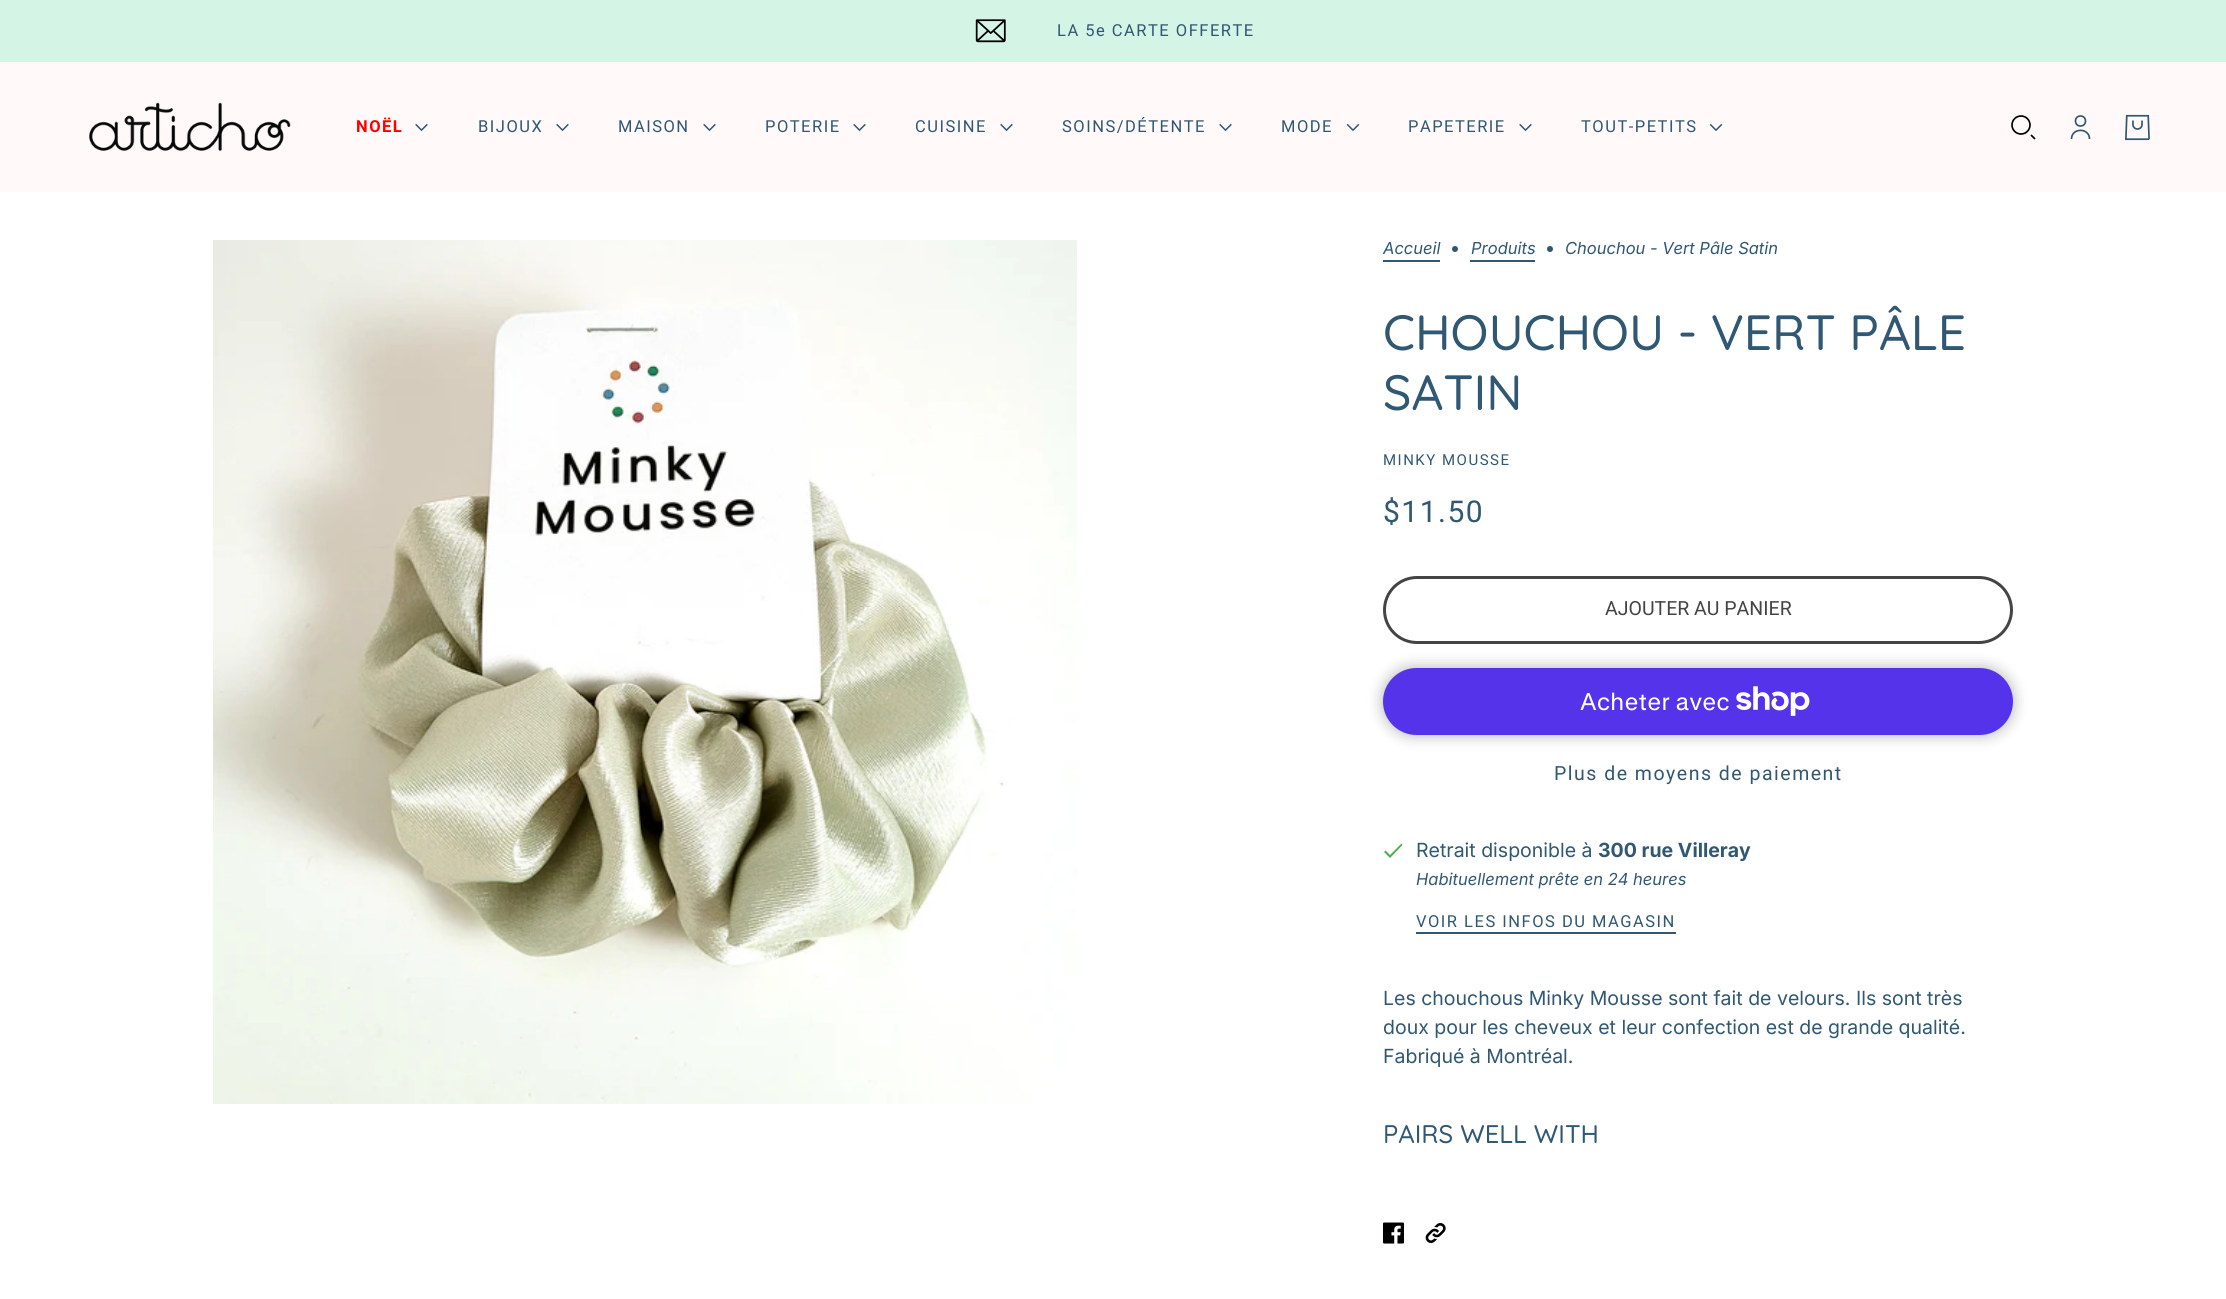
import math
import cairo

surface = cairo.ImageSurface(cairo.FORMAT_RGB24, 2226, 1299)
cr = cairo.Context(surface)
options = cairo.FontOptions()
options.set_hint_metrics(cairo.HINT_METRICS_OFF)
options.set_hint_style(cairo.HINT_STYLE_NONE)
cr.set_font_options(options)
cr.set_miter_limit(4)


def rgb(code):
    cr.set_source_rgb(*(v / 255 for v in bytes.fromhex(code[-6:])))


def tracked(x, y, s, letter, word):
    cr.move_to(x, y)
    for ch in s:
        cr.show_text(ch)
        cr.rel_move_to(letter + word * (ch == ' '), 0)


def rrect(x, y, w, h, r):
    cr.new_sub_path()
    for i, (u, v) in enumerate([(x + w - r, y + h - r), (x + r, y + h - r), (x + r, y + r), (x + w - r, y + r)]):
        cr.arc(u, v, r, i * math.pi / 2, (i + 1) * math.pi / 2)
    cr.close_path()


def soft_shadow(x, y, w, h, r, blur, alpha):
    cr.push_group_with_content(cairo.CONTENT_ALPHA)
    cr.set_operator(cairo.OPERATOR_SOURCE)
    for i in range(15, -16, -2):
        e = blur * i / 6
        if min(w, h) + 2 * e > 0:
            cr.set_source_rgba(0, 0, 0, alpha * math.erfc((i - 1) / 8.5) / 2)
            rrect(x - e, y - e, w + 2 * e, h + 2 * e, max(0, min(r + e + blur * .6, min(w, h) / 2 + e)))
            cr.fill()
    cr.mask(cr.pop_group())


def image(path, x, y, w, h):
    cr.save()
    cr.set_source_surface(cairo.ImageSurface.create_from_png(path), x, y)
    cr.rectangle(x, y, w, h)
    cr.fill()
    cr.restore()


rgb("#ffffff")
cr.paint()
rgb("#d4f4e5")
cr.rectangle(0, 0, 2226, 62)
cr.fill()
image("img/1.png", 975, 19, 31, 24)
rgb("#fff9f9")
cr.rectangle(0, 62, 2226, 130)
cr.fill()
image("img/2.png", 89, 102, 202, 49)
image("img/3.png", 415, 123, 13, 9)
image("img/3.png", 556, 123, 13, 9)
image("img/3.png", 703, 123, 13, 9)
image("img/3.png", 853, 123, 13, 9)
image("img/3.png", 1000, 123, 13, 9)
image("img/3.png", 1219, 123, 13, 9)
image("img/4.png", 1346, 123, 14, 8)
image("img/3.png", 1519, 123, 13, 9)
image("img/4.png", 1709, 123, 14, 8)
cr.arc(2021, 125, 9, 0, 2 * math.pi)
rgb("#000000")
cr.set_line_width(1.7)
cr.stroke()
cr.new_path()
cr.move_to(2031, 135)
cr.line_to(2035, 139)
cr.stroke()
cr.arc(2080.5, 121, 5, 0, 2 * math.pi)
rgb("#305872")
cr.stroke()
cr.new_path()
cr.move_to(2071.5, 139)
cr.curve_to(2071.5, 127.5, 2089.5, 127.5, 2089.5, 139)
cr.stroke()
image("img/5.png", 2125, 114, 25, 27)
image("img/6.png", 213, 240, 864, 864)
cr.rectangle(1383, 260, 57, 2)
cr.fill()
cr.arc(1455, 249, 3, 0, 2 * math.pi)
cr.fill()
cr.rectangle(1470, 260, 65, 2)
cr.fill()
cr.arc(1550, 249, 3, 0, 2 * math.pi)
cr.fill()
rrect(1384.5, 577.5, 627, 65, 32.5)
rgb("#444444")
cr.set_line_width(3)
cr.stroke()
rgb("#000000")
soft_shadow(1383, 668, 630, 67, 33.5, 7.5, 0.3)
rgb("#5433eb")
rrect(1383, 668, 630, 67, 33.5)
cr.fill()
image("img/7.png", 1736, 686, 74, 30)
rgb("#4caf50")
cr.new_path()
cr.move_to(1390, 855)
cr.line_to(1385.5, 850.5)
cr.line_to(1384, 852)
cr.line_to(1390, 858)
cr.line_to(1402.5, 845)
cr.line_to(1401.5, 843.5)
cr.close_path()
cr.fill()
rgb("#305872")
cr.rectangle(1416, 932, 260, 2)
cr.fill()
image("img/8.png", 1383, 1222, 21, 22)
image("img/9.png", 1425, 1223, 21, 20)
cr.select_font_face("Roboto")
cr.set_font_size(16.5)
tracked(1057, 36, "LA 5e CARTE OFFERTE", 1.5, 0)
cr.select_font_face("Roboto", cairo.FONT_SLANT_NORMAL, cairo.FONT_WEIGHT_BOLD)
rgb("#ff0000")
tracked(356, 132, "NOËL", 1.5, 0)
cr.select_font_face("Roboto")
rgb("#305872")
for x, y, s in [
    (478, 132, "BIJOUX"),
    (618, 132, "MAISON"),
    (765, 132, "POTERIE"),
    (915, 132, "CUISINE"),
    (1062, 132, "SOINS/DÉTENTE"),
    (1281, 132, "MODE"),
    (1408, 132, "PAPETERIE"),
    (1581, 132, "TOUT-PETITS"),
]:
    tracked(x, y, s, 1.5, 0)
cr.select_font_face("Inter", cairo.FONT_SLANT_ITALIC)
for x, y, s in [
    (1383, 254, "Accueil"),
    (1471, 254, "Produits"),
    (1565, 254, "Chouchou - Vert Pâle Satin"),
]:
    cr.move_to(x, y)
    cr.show_text(s)
cr.select_font_face("Quicksand Medium")
cr.set_font_size(49.5)
cr.move_to(1383, 350)
cr.show_text("CHOUCHOU - VERT PÂLE")
cr.move_to(1383, 410)
cr.show_text("SATIN")
cr.select_font_face("Roboto")
cr.set_font_size(15)
tracked(1383, 465, "MINKY MOUSSE", 1.5, 0)
cr.set_font_size(30)
tracked(1383, 522, "$11.50", 1.5, 0)
cr.set_font_size(19.5)
rgb("#444444")
cr.move_to(1605, 615)
cr.show_text("AJOUTER AU PANIER")
cr.select_font_face("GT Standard")
cr.set_font_size(24)
rgb("#ffffff")
cr.move_to(1580, 710)
cr.show_text("Acheter avec")
cr.select_font_face("Roboto")
cr.set_font_size(19.5)
rgb("#305872")
tracked(1554, 780, "Plus de moyens de paiement", 1.5, 0)
cr.select_font_face("Inter")
cr.move_to(1416, 857)
cr.show_text("Retrait disponible à")
cr.select_font_face("Inter", cairo.FONT_SLANT_NORMAL, cairo.FONT_WEIGHT_BOLD)
cr.move_to(1598, 857)
cr.show_text("300 rue Villeray")
cr.select_font_face("Inter", cairo.FONT_SLANT_ITALIC)
cr.set_font_size(16.5)
cr.move_to(1416, 885)
cr.show_text("Habituellement prête en 24 heures")
cr.select_font_face("Roboto")
tracked(1416, 927, "VOIR LES INFOS DU MAGASIN", 1.5, 0)
cr.select_font_face("Inter")
cr.set_font_size(19.5)
for x, y, s in [
    (1383, 1005, "Les chouchous Minky Mousse sont fait de velours. Ils sont très"),
    (1383, 1034, "doux pour les cheveux et leur confection est de grande qualité."),
    (1383, 1063, "Fabriqué à Montréal."),
]:
    cr.move_to(x, y)
    cr.show_text(s)
cr.select_font_face("Quicksand Medium")
cr.set_font_size(25.5)
cr.move_to(1383, 1143)
cr.show_text("PAIRS WELL WITH")
surface.write_to_png("page.png")
